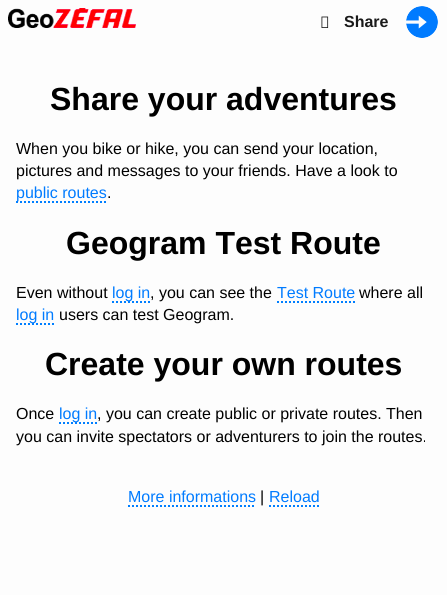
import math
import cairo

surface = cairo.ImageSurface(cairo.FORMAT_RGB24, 447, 595)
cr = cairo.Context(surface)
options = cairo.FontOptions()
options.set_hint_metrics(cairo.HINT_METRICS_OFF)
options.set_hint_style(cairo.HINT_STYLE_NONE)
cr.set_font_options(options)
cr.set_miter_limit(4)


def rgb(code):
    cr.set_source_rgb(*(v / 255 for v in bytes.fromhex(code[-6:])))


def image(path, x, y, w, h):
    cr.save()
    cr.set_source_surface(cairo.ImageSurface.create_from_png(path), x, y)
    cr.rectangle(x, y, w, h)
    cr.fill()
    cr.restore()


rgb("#fdfdfd")
cr.paint()
image("img/1.png", 8, 8, 128, 20)
image("img/2.png", 321, 16, 8, 12)
image("img/3.png", 406, 6, 32, 32)
cr.new_path()
cr.move_to(16, 202)
cr.line_to(107, 202)
rgb("#007fff")
cr.set_dash([2, 2])
cr.stroke()
cr.new_path()
cr.move_to(112, 302)
cr.line_to(150, 302)
cr.stroke()
cr.new_path()
cr.move_to(277, 302)
cr.line_to(355, 302)
cr.stroke()
cr.new_path()
cr.move_to(16, 324)
cr.line_to(54, 324)
cr.stroke()
cr.new_path()
cr.move_to(59, 423)
cr.line_to(97, 423)
cr.stroke()
cr.new_path()
cr.move_to(128, 506)
cr.line_to(256, 506)
cr.stroke()
cr.new_path()
cr.move_to(269, 506)
cr.line_to(319, 506)
cr.stroke()
cr.select_font_face("Liberation Sans", cairo.FONT_SLANT_NORMAL, cairo.FONT_WEIGHT_BOLD)
cr.set_font_size(16)
rgb("#1a1a1a")
cr.move_to(344, 27)
cr.show_text("Share")
cr.set_font_size(32)
rgb("#000000")
cr.move_to(50, 110)
cr.show_text("Share your adventures")
cr.select_font_face("Liberation Sans")
cr.set_font_size(16)
cr.move_to(16, 154)
cr.show_text("When you bike or hike, you can send your location,")
cr.move_to(16, 176)
cr.show_text("pictures and messages to your friends. Have a look to")
rgb("#007bff")
cr.move_to(16, 198)
cr.show_text("public routes")
rgb("#000000")
cr.move_to(107, 198)
cr.show_text(".")
cr.select_font_face("Liberation Sans", cairo.FONT_SLANT_NORMAL, cairo.FONT_WEIGHT_BOLD)
cr.set_font_size(32)
cr.move_to(66, 254)
cr.show_text("Geogram Test Route")
cr.select_font_face("Liberation Sans")
cr.set_font_size(16)
cr.move_to(16, 298)
cr.show_text("Even without")
rgb("#007bff")
cr.move_to(112, 298)
cr.show_text("log in")
rgb("#000000")
cr.move_to(150, 298)
cr.show_text(", you can see the")
rgb("#007bff")
cr.move_to(277, 298)
cr.show_text("Test Route")
rgb("#000000")
cr.move_to(359, 298)
cr.show_text("where all")
rgb("#007bff")
cr.move_to(16, 320)
cr.show_text("log in")
rgb("#000000")
cr.move_to(59, 320)
cr.show_text("users can test Geogram.")
cr.select_font_face("Liberation Sans", cairo.FONT_SLANT_NORMAL, cairo.FONT_WEIGHT_BOLD)
cr.set_font_size(32)
cr.move_to(45, 375)
cr.show_text("Create your own routes")
cr.select_font_face("Liberation Sans")
cr.set_font_size(16)
cr.move_to(16, 419)
cr.show_text("Once")
rgb("#007bff")
cr.move_to(59, 419)
cr.show_text("log in")
rgb("#000000")
cr.move_to(97, 419)
cr.show_text(", you can create public or private routes. Then")
cr.move_to(16, 442)
cr.show_text("you can invite spectators or adventurers to join the routes.")
rgb("#007bff")
cr.move_to(128, 502)
cr.show_text("More informations")
rgb("#000000")
cr.move_to(260, 502)
cr.show_text("|")
rgb("#007bff")
cr.move_to(269, 502)
cr.show_text("Reload")
surface.write_to_png("page.png")
